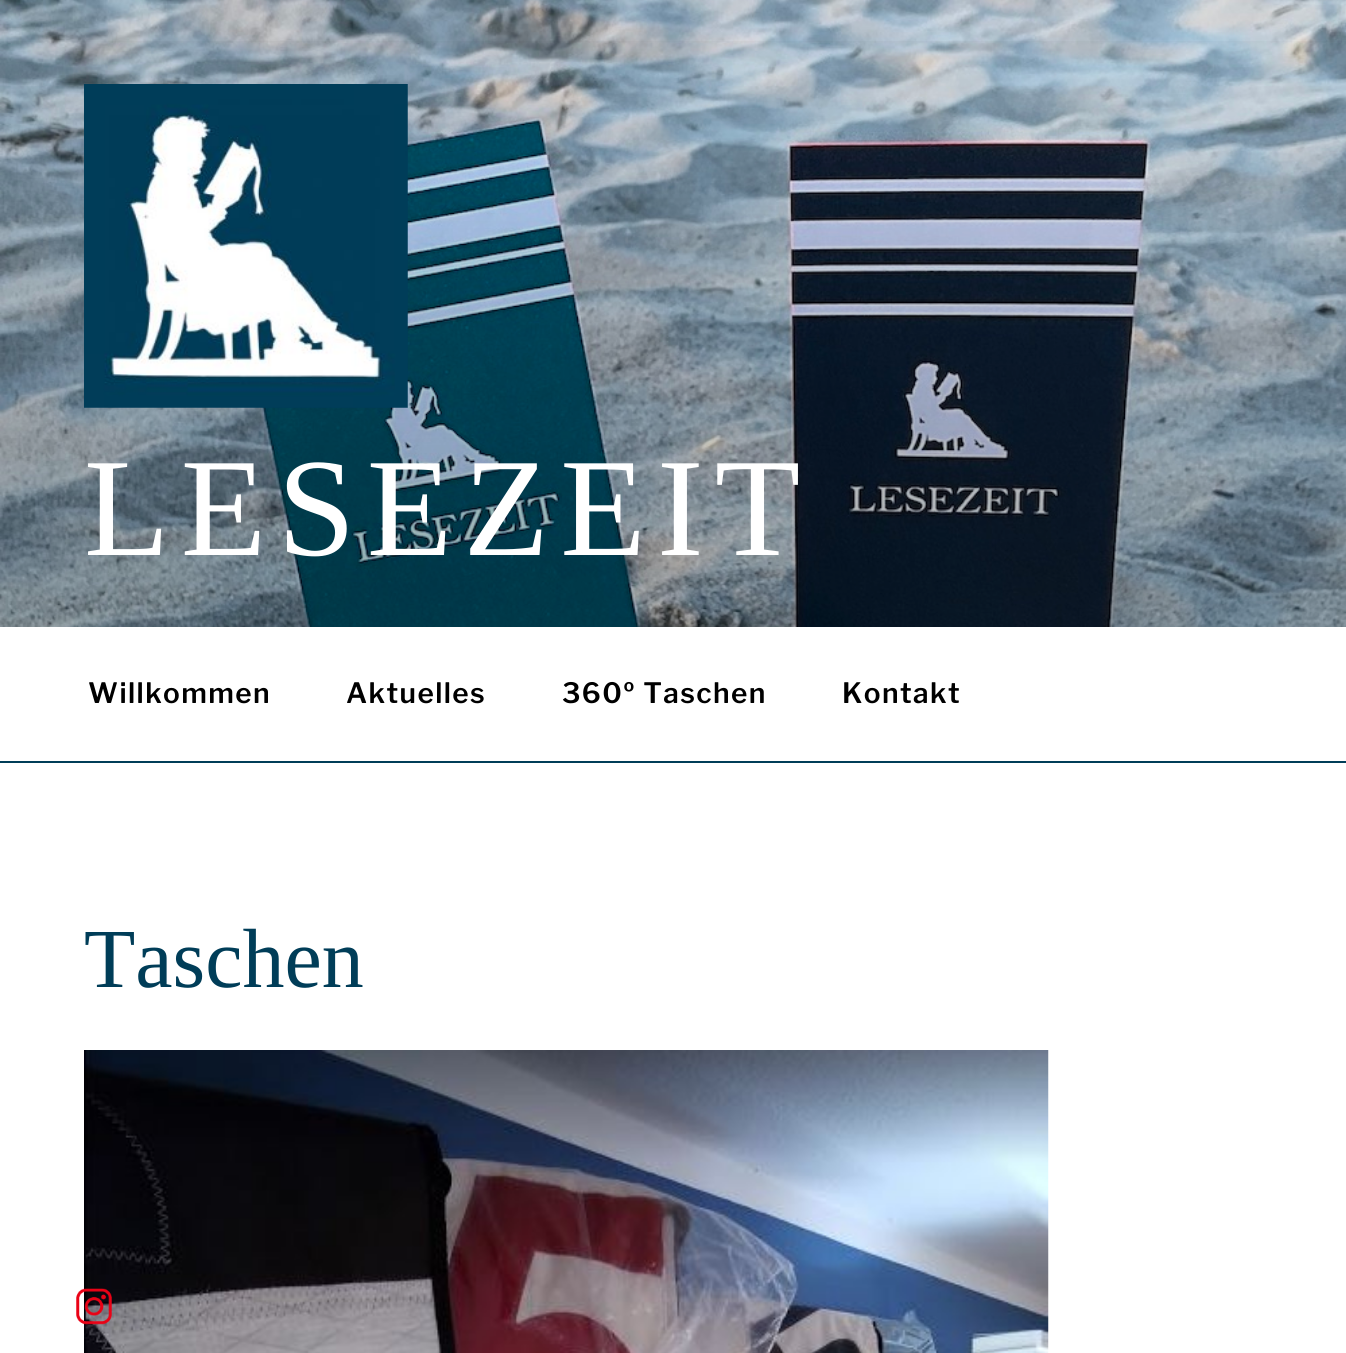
import math
import cairo

surface = cairo.ImageSurface(cairo.FORMAT_RGB24, 1346, 1353)
cr = cairo.Context(surface)
options = cairo.FontOptions()
options.set_hint_metrics(cairo.HINT_METRICS_OFF)
options.set_hint_style(cairo.HINT_STYLE_NONE)
cr.set_font_options(options)
cr.set_miter_limit(4)


def rgb(code):
    cr.set_source_rgb(*(v / 255 for v in bytes.fromhex(code[-6:])))


def tracked(x, y, s, letter, word):
    cr.move_to(x, y)
    for ch in s:
        cr.show_text(ch)
        cr.rel_move_to(letter + word * (ch == ' '), 0)


def image(path, x, y, w, h):
    cr.save()
    cr.set_source_surface(cairo.ImageSurface.create_from_png(path), x, y)
    cr.rectangle(x, y, w, h)
    cr.fill()
    cr.restore()


rgb("#ffffff")
cr.paint()
image("img/1.png", 0, 0, 1346, 627)
gradient = cairo.LinearGradient(674, 0, 674, 763)
gradient.add_color_stop_rgba(0, 0, 0, 0, 0)
gradient.add_color_stop_rgba(0.75, 0, 0, 0, 0.3)
gradient.add_color_stop_rgba(1, 0, 0, 0, 0.3)
cr.set_source(gradient)
cr.rectangle(0, 41, 1346, 586)
cr.fill()
image("img/2.png", 84, 84, 324, 324)
rgb("#003d58")
cr.rectangle(0, 761, 1346, 2)
cr.fill()
image("img/3.png", 84, 1050, 965, 303)
image("img/4.png", 76, 1288, 36, 37)
cr.select_font_face("Liberation Serif")
cr.set_font_size(140)
rgb("#ffffff")
tracked(84, 555, "LESEZEIT", 11.25, 0)
cr.select_font_face("Libre Franklin Thin")
cr.set_font_size(28)
rgb("#000000")
for x, y, s in [
    (88, 703, "Willkommen"),
    (346, 703, "Aktuelles"),
    (562, 703, "360º Taschen"),
    (842, 703, "Kontakt"),
]:
    tracked(x, y, s, 1.4, 0)
cr.select_font_face("Liberation Serif")
cr.set_font_size(84)
rgb("#003d58")
cr.move_to(84, 987)
cr.show_text("Taschen")
surface.write_to_png("page.png")
